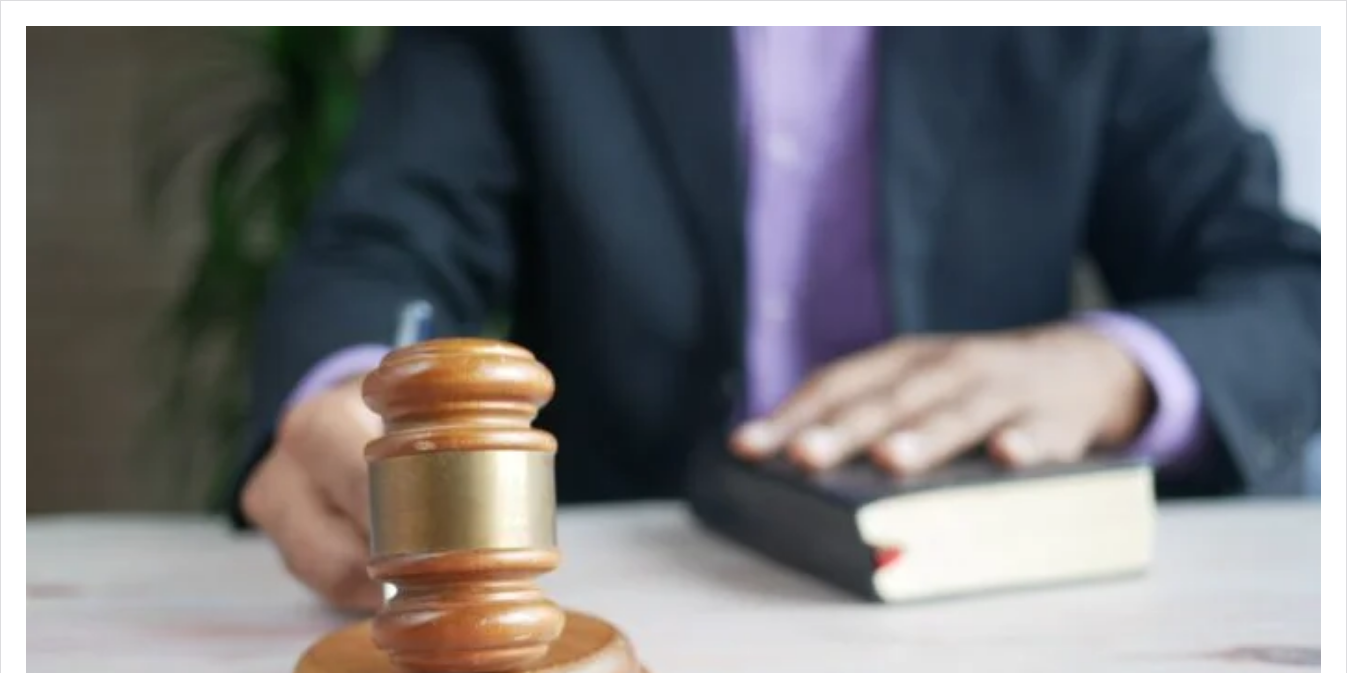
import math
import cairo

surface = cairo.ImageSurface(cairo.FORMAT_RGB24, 1347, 673)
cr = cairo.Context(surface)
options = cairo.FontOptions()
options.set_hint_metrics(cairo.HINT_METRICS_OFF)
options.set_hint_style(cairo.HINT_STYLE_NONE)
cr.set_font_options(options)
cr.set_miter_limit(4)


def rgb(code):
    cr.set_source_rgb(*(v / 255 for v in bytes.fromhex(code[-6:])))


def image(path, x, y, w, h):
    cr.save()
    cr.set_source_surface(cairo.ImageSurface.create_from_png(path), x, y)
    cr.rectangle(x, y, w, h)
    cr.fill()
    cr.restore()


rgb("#ffffff")
cr.paint()
cr.rectangle(0.5, 0.5, 1346, 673)
rgb("#dcdcde")
cr.set_line_width(1)
cr.stroke()
image("img/1.png", 26, 26, 1295, 647)
surface.write_to_png("page.png")
